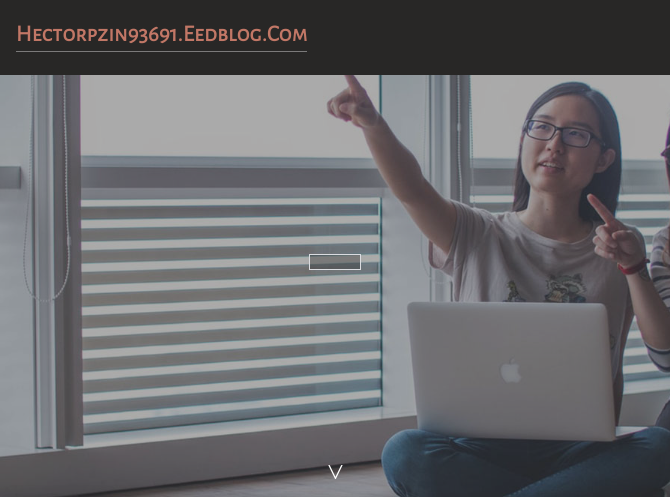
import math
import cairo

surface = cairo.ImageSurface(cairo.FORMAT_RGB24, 670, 497)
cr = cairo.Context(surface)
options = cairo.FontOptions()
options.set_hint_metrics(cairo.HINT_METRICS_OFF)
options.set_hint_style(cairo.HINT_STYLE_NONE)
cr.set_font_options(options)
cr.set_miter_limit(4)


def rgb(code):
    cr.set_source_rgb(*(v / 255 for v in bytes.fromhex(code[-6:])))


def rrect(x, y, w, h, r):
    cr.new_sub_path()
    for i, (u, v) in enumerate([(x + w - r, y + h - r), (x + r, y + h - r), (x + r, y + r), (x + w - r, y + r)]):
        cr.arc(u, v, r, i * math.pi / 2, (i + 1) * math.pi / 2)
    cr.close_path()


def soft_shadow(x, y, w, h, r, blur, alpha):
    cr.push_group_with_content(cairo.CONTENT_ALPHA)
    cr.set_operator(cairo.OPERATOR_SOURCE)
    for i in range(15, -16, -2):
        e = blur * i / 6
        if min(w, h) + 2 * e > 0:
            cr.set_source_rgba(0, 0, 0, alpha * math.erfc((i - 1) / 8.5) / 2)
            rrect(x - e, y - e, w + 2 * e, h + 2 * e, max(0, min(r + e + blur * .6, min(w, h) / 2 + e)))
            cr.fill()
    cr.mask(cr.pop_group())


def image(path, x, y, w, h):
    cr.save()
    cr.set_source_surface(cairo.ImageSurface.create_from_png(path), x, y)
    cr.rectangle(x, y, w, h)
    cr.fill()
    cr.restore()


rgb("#ffffff")
cr.paint()
rgb("#282726")
cr.rectangle(0, 0, 670, 75)
cr.fill()
rgb("#7b7a7a")
cr.rectangle(16, 51, 291, 1)
cr.fill()
image("img/1.png", 0, 75, 670, 422)
cr.set_source_rgba(0.204, 0.2, 0.196, 0.4)
cr.rectangle(309.5, 254.5, 51, 15)
cr.fill_preserve()
rgb("#dadce0")
cr.set_line_width(1)
cr.stroke()
rgb("#272625")
soft_shadow(6, 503, 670, 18, 0, 8, 0.5)
cr.select_font_face("Alegreya Sans SC", cairo.FONT_SLANT_NORMAL, cairo.FONT_WEIGHT_BOLD)
cr.set_font_size(23)
rgb("#c27766")
cr.move_to(16, 41)
cr.show_text("Hectorpzin93691.Eedblog.Com")
cr.select_font_face("Liberation Serif")
cr.set_font_size(30)
rgb("#ffffff")
cr.move_to(327, 482)
cr.show_text("˅")
surface.write_to_png("page.png")
